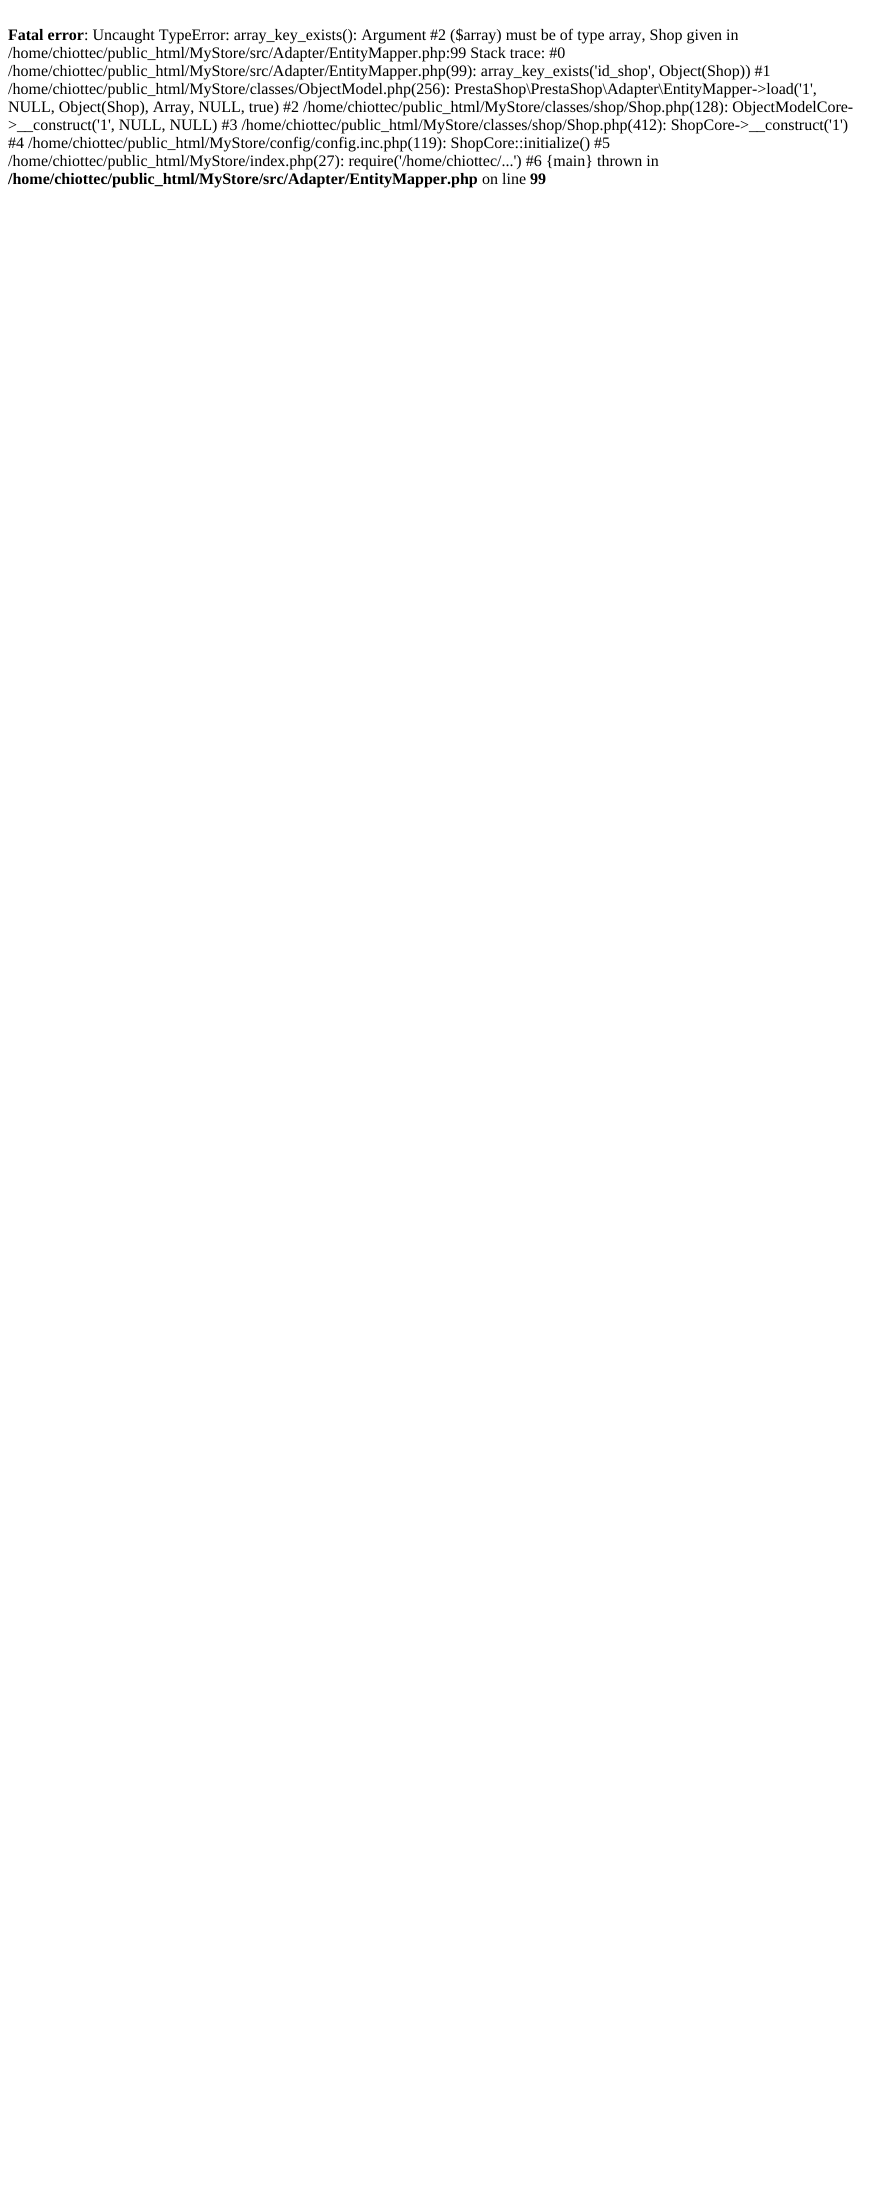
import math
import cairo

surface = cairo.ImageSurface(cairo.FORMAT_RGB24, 874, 2202)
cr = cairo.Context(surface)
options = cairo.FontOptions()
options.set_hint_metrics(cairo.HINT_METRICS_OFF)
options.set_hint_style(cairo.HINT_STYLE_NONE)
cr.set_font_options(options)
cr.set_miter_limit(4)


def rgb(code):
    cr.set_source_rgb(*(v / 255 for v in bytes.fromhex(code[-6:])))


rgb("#ffffff")
cr.paint()
cr.select_font_face("Liberation Serif", cairo.FONT_SLANT_NORMAL, cairo.FONT_WEIGHT_BOLD)
cr.set_font_size(16)
rgb("#000000")
cr.move_to(8, 40)
cr.show_text("Fatal error")
cr.select_font_face("Liberation Serif")
for x, y, s in [
    (84, 40, ": Uncaught TypeError: array_key_exists(): Argument #2 ($array) must be of type array, Shop given in"),
    (8, 58, "/home/chiottec/public_html/MyStore/src/Adapter/EntityMapper.php:99 Stack trace: #0"),
    (8, 76, "/home/chiottec/public_html/MyStore/src/Adapter/EntityMapper.php(99): array_key_exists('id_shop', Object(Shop)) #1"),
    (8, 94, "/home/chiottec/public_html/MyStore/classes/ObjectModel.php(256): PrestaShop\\PrestaShop\\Adapter\\EntityMapper->load('1',"),
    (8, 112, "NULL, Object(Shop), Array, NULL, true) #2 /home/chiottec/public_html/MyStore/classes/shop/Shop.php(128): ObjectModelCore-"),
    (8, 130, ">__construct('1', NULL, NULL) #3 /home/chiottec/public_html/MyStore/classes/shop/Shop.php(412): ShopCore->__construct('1')"),
    (8, 148, "#4 /home/chiottec/public_html/MyStore/config/config.inc.php(119): ShopCore::initialize() #5"),
    (8, 166, "/home/chiottec/public_html/MyStore/index.php(27): require('/home/chiottec/...') #6 {main} thrown in"),
]:
    cr.move_to(x, y)
    cr.show_text(s)
cr.select_font_face("Liberation Serif", cairo.FONT_SLANT_NORMAL, cairo.FONT_WEIGHT_BOLD)
cr.move_to(8, 184)
cr.show_text("/home/chiottec/public_html/MyStore/src/Adapter/EntityMapper.php")
cr.select_font_face("Liberation Serif")
cr.move_to(482, 184)
cr.show_text("on line")
cr.select_font_face("Liberation Serif", cairo.FONT_SLANT_NORMAL, cairo.FONT_WEIGHT_BOLD)
cr.move_to(530, 184)
cr.show_text("99")
surface.write_to_png("page.png")
